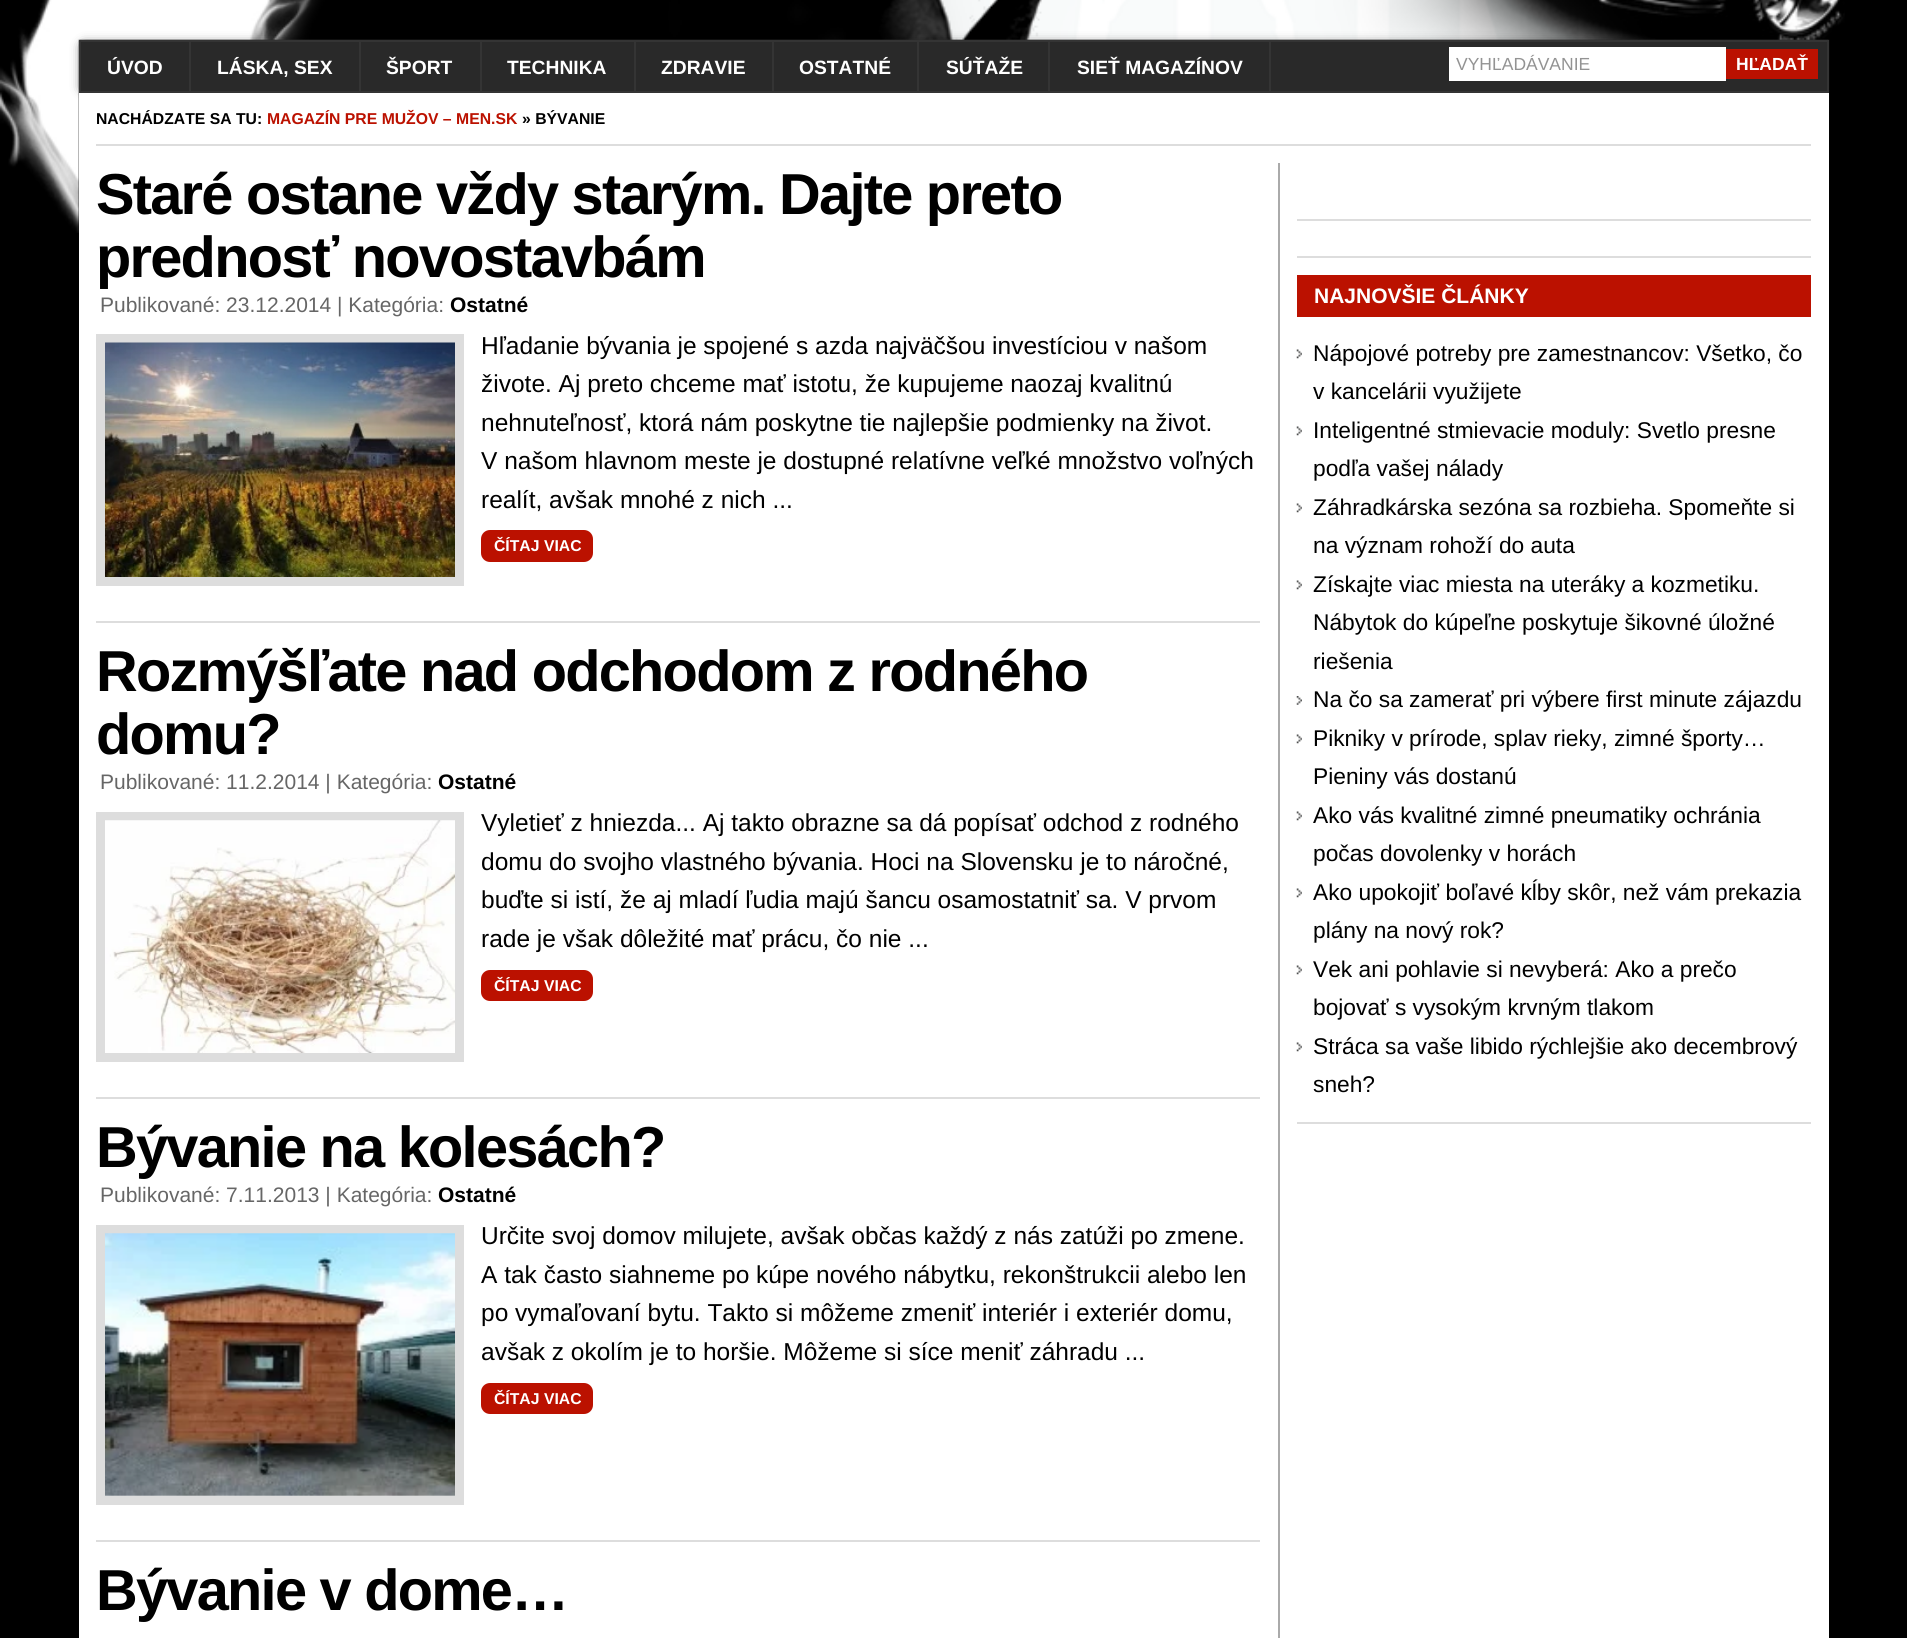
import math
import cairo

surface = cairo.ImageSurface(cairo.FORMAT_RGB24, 1907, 1638)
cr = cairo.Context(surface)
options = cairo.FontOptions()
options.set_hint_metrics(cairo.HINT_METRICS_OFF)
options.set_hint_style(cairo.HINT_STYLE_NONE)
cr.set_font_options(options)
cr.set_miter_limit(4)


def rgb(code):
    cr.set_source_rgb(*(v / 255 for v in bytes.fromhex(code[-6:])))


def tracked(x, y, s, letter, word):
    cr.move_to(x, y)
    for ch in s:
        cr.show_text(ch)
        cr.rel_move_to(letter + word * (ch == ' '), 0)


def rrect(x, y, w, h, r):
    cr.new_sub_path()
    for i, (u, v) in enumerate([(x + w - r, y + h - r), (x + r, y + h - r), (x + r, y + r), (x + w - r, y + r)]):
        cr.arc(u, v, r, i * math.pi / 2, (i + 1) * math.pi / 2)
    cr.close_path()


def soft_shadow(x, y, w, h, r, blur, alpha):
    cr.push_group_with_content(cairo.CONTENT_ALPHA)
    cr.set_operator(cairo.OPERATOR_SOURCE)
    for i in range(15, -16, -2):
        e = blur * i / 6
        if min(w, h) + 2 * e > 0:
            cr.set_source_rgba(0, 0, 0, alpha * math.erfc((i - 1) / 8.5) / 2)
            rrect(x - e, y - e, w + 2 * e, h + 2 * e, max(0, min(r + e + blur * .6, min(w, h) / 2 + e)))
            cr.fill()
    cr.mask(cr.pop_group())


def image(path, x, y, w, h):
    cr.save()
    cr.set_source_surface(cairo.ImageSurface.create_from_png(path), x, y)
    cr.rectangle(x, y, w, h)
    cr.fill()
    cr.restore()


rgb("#000000")
cr.paint()
image("img/1.png", 0, 0, 1845, 233)
soft_shadow(84, 46, 1740, 42, 0, 6, 1)
rgb("#292929")
cr.rectangle(80, 41, 1748, 51)
cr.fill_preserve()
rgb("#343434")
cr.stroke()
for x, y, w, h, color in [
    (189, 42, 2, 49, "#343434"),
    (359, 42, 2, 49, "#343434"),
    (480, 42, 2, 49, "#343434"),
    (634, 42, 2, 49, "#343434"),
    (772, 42, 2, 49, "#343434"),
    (917, 42, 2, 49, "#343434"),
    (1048, 42, 2, 49, "#343434"),
    (1269, 42, 2, 49, "#343434"),
    (1449, 47, 277, 34, "#ffffff"),
    (1726, 49, 92, 30, "#bb1100"),
    (79, 93, 1750, 1545, "#ffffff"),
    (96, 144, 1715, 2, "#dddddd"),
    (1278, 163, 2, 1475, "#aaaaaa"),
    (96, 621, 1164, 2, "#dddddd"),
]:
    rgb(color)
    cr.rectangle(x, y, w, h)
    cr.fill()
cr.rectangle(100.5, 338.5, 359, 243)
cr.set_line_width(9)
cr.stroke()
image("img/2.png", 105, 342, 350, 235)
rgb("#bb1100")
rrect(481, 530, 112, 32, 9)
cr.fill()
rgb("#dddddd")
cr.rectangle(96, 1097, 1164, 2)
cr.fill()
cr.rectangle(100.5, 816.5, 359, 241)
cr.stroke()
image("img/3.png", 105, 820, 350, 233)
rgb("#bb1100")
rrect(481, 970, 112, 31, 9)
cr.fill()
rgb("#dddddd")
cr.rectangle(96, 1540, 1164, 2)
cr.fill()
cr.rectangle(100.5, 1229.5, 359, 271)
cr.stroke()
image("img/4.png", 105, 1233, 350, 263)
rgb("#bb1100")
rrect(481, 1383, 112, 31, 9)
cr.fill()
for x, y, w, h, color in [
    (1297, 219, 514, 2, "#dddddd"),
    (1297, 256, 514, 2, "#dddddd"),
    (1297, 1122, 514, 2, "#dddddd"),
    (1297, 275, 514, 42, "#bb1100"),
]:
    rgb(color)
    cr.rectangle(x, y, w, h)
    cr.fill()
image("img/5.png", 1296, 349, 6, 10)
image("img/5.png", 1296, 426, 6, 10)
image("img/5.png", 1296, 503, 6, 10)
image("img/5.png", 1296, 580, 6, 10)
image("img/6.png", 1296, 696, 6, 9)
image("img/5.png", 1296, 734, 6, 10)
image("img/5.png", 1296, 811, 6, 10)
image("img/5.png", 1296, 888, 6, 10)
image("img/5.png", 1296, 965, 6, 10)
image("img/5.png", 1296, 1042, 6, 10)
cr.select_font_face("Liberation Sans", cairo.FONT_SLANT_NORMAL, cairo.FONT_WEIGHT_BOLD)
cr.set_font_size(19.25)
rgb("#ffffff")
for x, y, s in [
    (107, 74, "ÚVOD"),
    (217, 74, "LÁSKA, SEX"),
    (386, 74, "ŠPORT"),
    (507, 74, "TECHNIKA"),
    (661, 74, "ZDRAVIE"),
    (799, 74, "OSTATNÉ"),
    (946, 74, "SÚŤAŽE"),
    (1077, 74, "SIEŤ MAGAZÍNOV"),
]:
    cr.move_to(x, y)
    cr.show_text(s)
cr.select_font_face("Liberation Sans")
cr.set_font_size(17.5)
rgb("#939393")
cr.move_to(1456, 70)
cr.show_text("VYHĽADÁVANIE")
cr.select_font_face("Liberation Sans", cairo.FONT_SLANT_NORMAL, cairo.FONT_WEIGHT_BOLD)
rgb("#ffffff")
cr.move_to(1736, 70)
cr.show_text("HĽADAŤ")
cr.set_font_size(15.75)
rgb("#000000")
cr.move_to(96, 124)
cr.show_text("NACHÁDZATE SA TU:")
rgb("#bb1100")
cr.move_to(267, 124)
cr.show_text("MAGAZÍN PRE MUŽOV – MEN.SK")
rgb("#000000")
cr.move_to(522, 124)
cr.show_text("» BÝVANIE")
cr.set_font_size(57.75)
tracked(96, 214, "Staré ostane vždy starým. Dajte preto", -1.75, 0)
tracked(96, 277, "prednosť novostavbám", -1.75, 0)
cr.select_font_face("Liberation Sans")
cr.set_font_size(21)
rgb("#666666")
cr.move_to(100, 312)
cr.show_text("Publikované: 23.12.2014 | Kategória:")
cr.select_font_face("Liberation Sans", cairo.FONT_SLANT_NORMAL, cairo.FONT_WEIGHT_BOLD)
rgb("#000000")
cr.move_to(450, 312)
cr.show_text("Ostatné")
cr.select_font_face("Liberation Sans")
cr.set_font_size(24.5)
for x, y, s in [
    (481, 354, "Hľadanie bývania je spojené s azda najväčšou investíciou v našom"),
    (481, 392, "živote. Aj preto chceme mať istotu, že kupujeme naozaj kvalitnú"),
    (481, 431, "nehnuteľnosť, ktorá nám poskytne tie najlepšie podmienky na život."),
    (481, 469, "V našom hlavnom meste je dostupné relatívne veľké množstvo voľných"),
    (481, 508, "realít, avšak mnohé z nich ..."),
]:
    cr.move_to(x, y)
    cr.show_text(s)
cr.select_font_face("Liberation Sans", cairo.FONT_SLANT_NORMAL, cairo.FONT_WEIGHT_BOLD)
cr.set_font_size(15.75)
rgb("#ffffff")
cr.move_to(494, 551)
cr.show_text("ČÍTAJ VIAC")
cr.set_font_size(57.75)
rgb("#000000")
tracked(96, 691, "Rozmýšľate nad odchodom z rodného", -1.75, 0)
tracked(96, 754, "domu?", -1.75, 0)
cr.select_font_face("Liberation Sans")
cr.set_font_size(21)
rgb("#666666")
cr.move_to(100, 789)
cr.show_text("Publikované: 11.2.2014 | Kategória:")
cr.select_font_face("Liberation Sans", cairo.FONT_SLANT_NORMAL, cairo.FONT_WEIGHT_BOLD)
rgb("#000000")
cr.move_to(438, 789)
cr.show_text("Ostatné")
cr.select_font_face("Liberation Sans")
cr.set_font_size(24.5)
for x, y, s in [
    (481, 831, "Vyletieť z hniezda... Aj takto obrazne sa dá popísať odchod z rodného"),
    (481, 870, "domu do svojho vlastného bývania. Hoci na Slovensku je to náročné,"),
    (481, 908, "buďte si istí, že aj mladí ľudia majú šancu osamostatniť sa. V prvom"),
    (481, 947, "rade je však dôležité mať prácu, čo nie ..."),
]:
    cr.move_to(x, y)
    cr.show_text(s)
cr.select_font_face("Liberation Sans", cairo.FONT_SLANT_NORMAL, cairo.FONT_WEIGHT_BOLD)
cr.set_font_size(15.75)
rgb("#ffffff")
cr.move_to(494, 991)
cr.show_text("ČÍTAJ VIAC")
cr.set_font_size(57.75)
rgb("#000000")
tracked(96, 1167, "Bývanie na kolesách?", -1.75, 0)
cr.select_font_face("Liberation Sans")
cr.set_font_size(21)
rgb("#666666")
cr.move_to(100, 1202)
cr.show_text("Publikované: 7.11.2013 | Kategória:")
cr.select_font_face("Liberation Sans", cairo.FONT_SLANT_NORMAL, cairo.FONT_WEIGHT_BOLD)
rgb("#000000")
cr.move_to(438, 1202)
cr.show_text("Ostatné")
cr.select_font_face("Liberation Sans")
cr.set_font_size(24.5)
for x, y, s in [
    (481, 1244, "Určite svoj domov milujete, avšak občas každý z nás zatúži po zmene."),
    (481, 1283, "A tak často siahneme po kúpe nového nábytku, rekonštrukcii alebo len"),
    (481, 1321, "po vymaľovaní bytu. Takto si môžeme zmeniť interiér i exteriér domu,"),
    (481, 1360, "avšak z okolím je to horšie. Môžeme si síce meniť záhradu ..."),
]:
    cr.move_to(x, y)
    cr.show_text(s)
cr.select_font_face("Liberation Sans", cairo.FONT_SLANT_NORMAL, cairo.FONT_WEIGHT_BOLD)
cr.set_font_size(15.75)
rgb("#ffffff")
cr.move_to(494, 1404)
cr.show_text("ČÍTAJ VIAC")
cr.set_font_size(57.75)
rgb("#000000")
tracked(96, 1610, "Bývanie v dome…", -1.75, 0)
cr.set_font_size(21)
rgb("#ffffff")
cr.move_to(1314, 303)
cr.show_text("NAJNOVŠIE ČLÁNKY")
cr.select_font_face("Liberation Sans")
cr.set_font_size(22.75)
rgb("#000000")
for x, y, s in [
    (1313, 361, "Nápojové potreby pre zamestnancov: Všetko, čo"),
    (1313, 399, "v kancelárii využijete"),
    (1313, 438, "Inteligentné stmievacie moduly: Svetlo presne"),
    (1313, 476, "podľa vašej nálady"),
    (1313, 515, "Záhradkárska sezóna sa rozbieha. Spomeňte si"),
    (1313, 553, "na význam rohoží do auta"),
    (1313, 592, "Získajte viac miesta na uteráky a kozmetiku."),
    (1313, 630, "Nábytok do kúpeľne poskytuje šikovné úložné"),
    (1313, 669, "riešenia"),
    (1313, 707, "Na čo sa zamerať pri výbere first minute zájazdu"),
    (1313, 746, "Pikniky v prírode, splav rieky, zimné športy…"),
    (1313, 784, "Pieniny vás dostanú"),
    (1313, 823, "Ako vás kvalitné zimné pneumatiky ochránia"),
    (1313, 861, "počas dovolenky v horách"),
    (1313, 900, "Ako upokojiť boľavé kĺby skôr, než vám prekazia"),
    (1313, 938, "plány na nový rok?"),
    (1313, 977, "Vek ani pohlavie si nevyberá: Ako a prečo"),
    (1313, 1015, "bojovať s vysokým krvným tlakom"),
    (1313, 1054, "Stráca sa vaše libido rýchlejšie ako decembrový"),
    (1313, 1092, "sneh?"),
]:
    cr.move_to(x, y)
    cr.show_text(s)
surface.write_to_png("page.png")
